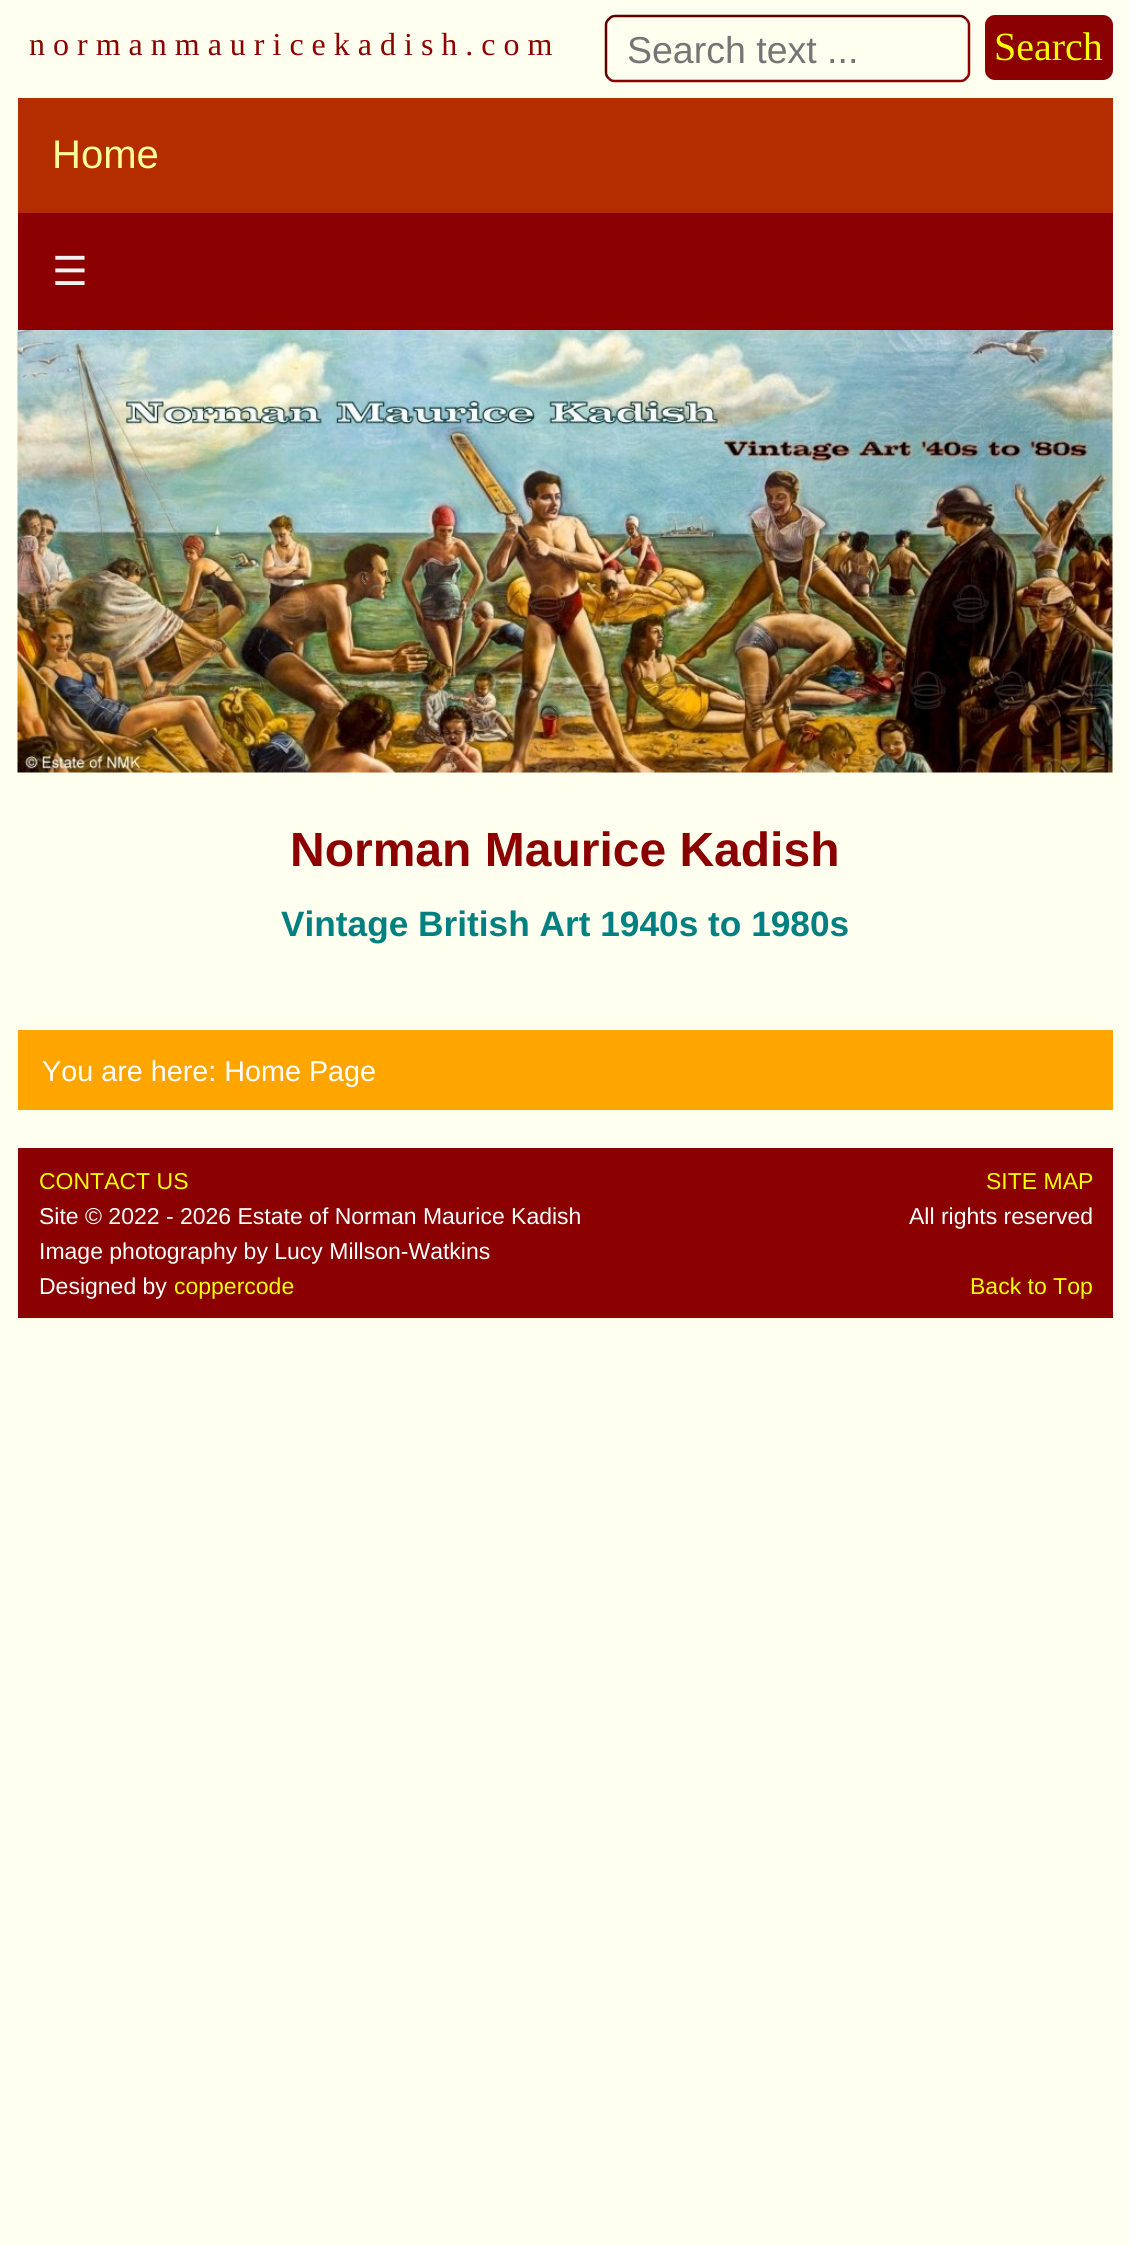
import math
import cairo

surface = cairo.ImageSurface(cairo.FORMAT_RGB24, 1129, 2245)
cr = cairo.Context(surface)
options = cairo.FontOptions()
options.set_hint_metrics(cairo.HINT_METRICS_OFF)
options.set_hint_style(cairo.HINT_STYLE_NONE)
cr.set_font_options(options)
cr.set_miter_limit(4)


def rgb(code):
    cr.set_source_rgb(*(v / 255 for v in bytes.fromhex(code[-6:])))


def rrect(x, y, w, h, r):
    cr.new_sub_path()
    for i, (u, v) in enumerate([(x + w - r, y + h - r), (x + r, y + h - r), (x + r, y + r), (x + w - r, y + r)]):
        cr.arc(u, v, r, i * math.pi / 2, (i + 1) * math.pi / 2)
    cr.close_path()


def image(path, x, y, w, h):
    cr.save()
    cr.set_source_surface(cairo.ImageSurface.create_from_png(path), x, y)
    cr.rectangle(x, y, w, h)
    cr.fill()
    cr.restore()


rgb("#ffffef")
cr.paint()
rgb("#8b0000")
cr.rectangle(18, 213, 1095, 117)
cr.fill()
rgb("#b32d00")
cr.rectangle(18, 98, 1095, 115)
cr.fill()
cr.new_path()
cr.move_to(966, 19)
cr.curve_to(968, 20.5, 969, 22.5, 969, 25)
cr.line_to(969, 72.5)
cr.curve_to(969, 75, 968, 77, 966, 78.5)
cr.curve_to(964.5, 80.5, 962.5, 81, 960, 81)
cr.line_to(615, 81)
cr.curve_to(612.5, 81, 610.5, 80.5, 609, 78.5)
rgb("#8b0000")
cr.set_line_width(2.5)
cr.stroke()
cr.new_path()
cr.move_to(609, 78.5)
cr.curve_to(607, 77, 606, 75, 606, 72.5)
cr.line_to(606, 25)
cr.curve_to(606, 22.5, 607, 20.5, 609, 19)
cr.curve_to(610.5, 17, 612.5, 16, 615, 16)
cr.line_to(960, 16)
cr.curve_to(962.5, 16, 964.5, 17, 966, 19)
rgb("#5d0000")
cr.stroke()
rgb("#8b0000")
rrect(985, 15, 128, 65, 10)
cr.fill()
image("img/1.png", 17, 330, 1096, 443)
rgb("#ffa500")
cr.rectangle(18, 1030, 1095, 80)
cr.fill()
rgb("#8b0000")
cr.rectangle(18, 1148, 1095, 170)
cr.fill()
cr.select_font_face("Liberation Serif")
cr.set_font_size(32)
cr.move_to(29, 55)
cr.show_text("n o r m a n m a u r i c e k a d i s h . c o m")
cr.select_font_face("Liberation Sans")
cr.set_font_size(40)
rgb("#ffff99")
cr.move_to(52, 168)
cr.show_text("Home")
cr.select_font_face("DejaVu Sans")
rgb("#f2f2f2")
cr.move_to(52, 285)
cr.show_text("☰")
cr.select_font_face("Liberation Sans")
cr.set_font_size(37.5)
rgb("#757575")
cr.move_to(627, 63)
cr.show_text("Search text ...")
cr.select_font_face("Liberation Serif")
cr.set_font_size(40)
rgb("#ffff00")
cr.move_to(994, 60)
cr.show_text("Search")
cr.select_font_face("Liberation Sans", cairo.FONT_SLANT_NORMAL, cairo.FONT_WEIGHT_BOLD)
cr.set_font_size(48)
rgb("#8b0000")
cr.move_to(290, 866)
cr.show_text("Norman Maurice Kadish")
cr.set_font_size(35.25)
rgb("#008080")
cr.move_to(281, 936)
cr.show_text("Vintage British Art 1940s to 1980s")
cr.select_font_face("Liberation Sans")
cr.set_font_size(28.75)
rgb("#ffffff")
cr.move_to(42, 1081)
cr.show_text("You are here: Home Page")
cr.set_font_size(23)
rgb("#ffff00")
cr.move_to(39, 1189)
cr.show_text("CONTACT US")
cr.move_to(986, 1189)
cr.show_text("SITE MAP")
rgb("#ffffff")
for x, y, s in [
    (39, 1224, "Site © 2022 - 2026 Estate of Norman Maurice Kadish"),
    (909, 1224, "All rights reserved"),
    (39, 1259, "Image photography by Lucy Millson-Watkins"),
    (39, 1294, "Designed by"),
]:
    cr.move_to(x, y)
    cr.show_text(s)
rgb("#ffff00")
cr.move_to(174, 1294)
cr.show_text("coppercode")
cr.move_to(970, 1294)
cr.show_text("Back to Top")
surface.write_to_png("page.png")
